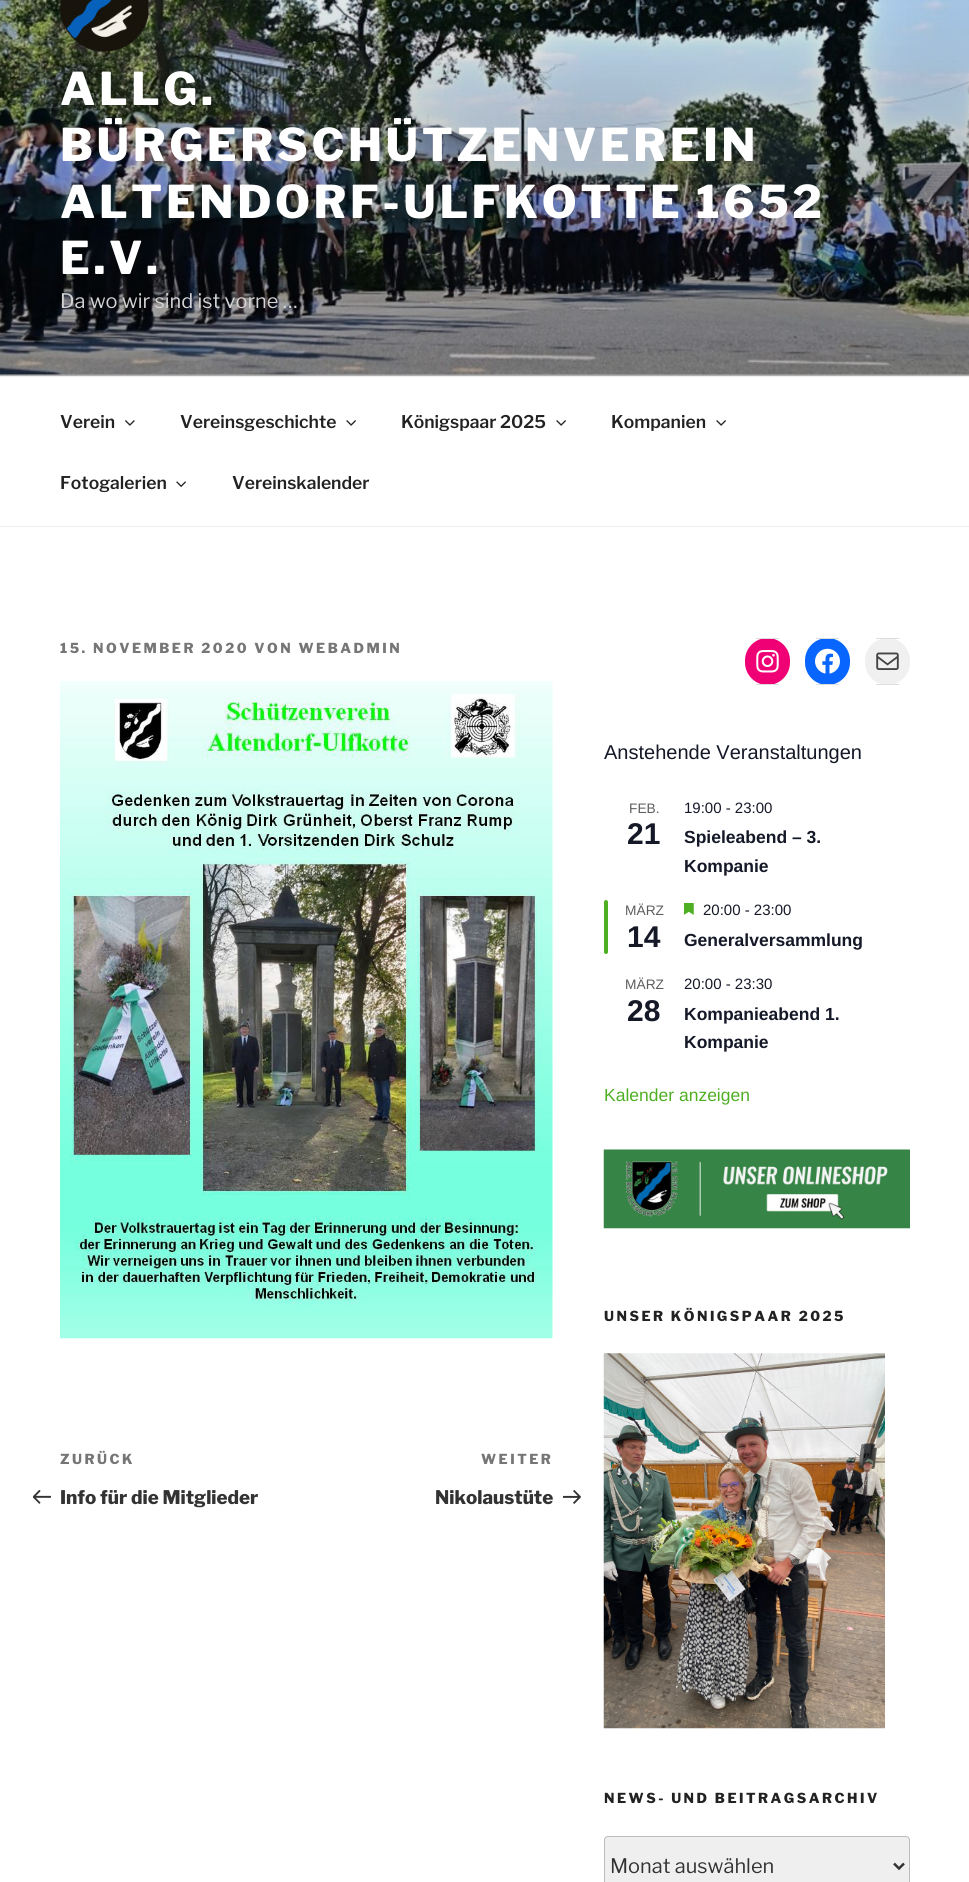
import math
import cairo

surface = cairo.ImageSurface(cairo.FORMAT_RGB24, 969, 1882)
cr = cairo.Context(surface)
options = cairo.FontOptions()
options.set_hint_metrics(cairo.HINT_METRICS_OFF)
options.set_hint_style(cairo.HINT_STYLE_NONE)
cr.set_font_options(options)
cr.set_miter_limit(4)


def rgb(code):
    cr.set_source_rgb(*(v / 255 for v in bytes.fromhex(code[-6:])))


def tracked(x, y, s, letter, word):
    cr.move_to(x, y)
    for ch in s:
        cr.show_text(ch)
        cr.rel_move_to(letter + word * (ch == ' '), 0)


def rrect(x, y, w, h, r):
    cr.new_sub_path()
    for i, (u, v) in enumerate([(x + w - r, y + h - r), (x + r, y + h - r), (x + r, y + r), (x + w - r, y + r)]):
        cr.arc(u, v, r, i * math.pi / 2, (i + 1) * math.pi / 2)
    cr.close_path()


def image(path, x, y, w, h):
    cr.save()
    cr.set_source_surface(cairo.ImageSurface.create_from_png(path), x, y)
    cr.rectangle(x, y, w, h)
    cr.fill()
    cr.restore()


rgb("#ffffff")
cr.paint()
rgb("#fafafa")
cr.rectangle(0, 374, 969, 2)
cr.fill()
image("img/1.png", 0, 0, 969, 375)
gradient = cairo.LinearGradient(485, -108, 485, 376)
gradient.add_color_stop_rgba(0, 0, 0, 0, 0)
gradient.add_color_stop_rgba(0.75, 0, 0, 0, 0.3)
gradient.add_color_stop_rgba(1, 0, 0, 0, 0.3)
cr.set_source(gradient)
cr.rectangle(0, 0, 969, 376)
cr.fill()
image("img/2.png", 60, 0, 89, 52)
rgb("#eeeeee")
cr.rectangle(0, 376, 969, 1)
cr.fill()
cr.rectangle(0, 526, 969, 1)
cr.fill()
image("img/3.png", 125, 420, 10, 6)
image("img/4.png", 346, 420, 10, 6)
image("img/4.png", 556, 420, 10, 6)
image("img/4.png", 716, 420, 10, 6)
image("img/5.png", 176, 481, 10, 6)
image("img/6.png", 60, 681, 493, 658)
image("img/7.png", 33, 1490, 18, 14)
image("img/8.png", 563, 1490, 18, 14)
rgb("#f00075")
rrect(745, 638, 45, 47, 22.5)
cr.fill()
rgb("#dddddd")
cr.rectangle(756, 638, 23, 1)
cr.fill()
cr.rectangle(756, 684, 23, 1)
cr.fill()
image("img/9.png", 756, 650, 23, 23)
rgb("#0866ff")
rrect(805, 638, 45, 47, 22.5)
cr.fill()
rgb("#dddddd")
cr.rectangle(816, 638, 23, 1)
cr.fill()
cr.rectangle(816, 684, 23, 1)
cr.fill()
image("img/10.png", 815, 648, 25, 26)
rgb("#f0f0f0")
rrect(865, 638, 45, 47, 22.5)
cr.fill()
rgb("#dddddd")
cr.rectangle(876, 638, 23, 1)
cr.fill()
cr.rectangle(876, 684, 23, 1)
cr.fill()
image("img/11.png", 876, 652, 23, 18)
rgb("#4faf23")
rrect(604, 900, 4, 54, 2)
cr.fill()
image("img/12.png", 684, 903, 10, 12)
image("img/13.png", 603, 1149, 307, 80)
image("img/14.png", 603, 1353, 282, 376)
rgb("#efefef")
rrect(604.5, 1836.5, 305, 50, 3.5)
cr.fill_preserve()
rgb("#bbbbbb")
cr.set_line_width(1)
cr.stroke()
cr.new_path()
cr.move_to(894, 1863.5)
cr.line_to(899, 1868.5)
cr.line_to(904, 1863.5)
rgb("#333333")
cr.set_line_width(2.5)
cr.stroke()
cr.select_font_face("Libre Franklin Thin")
cr.set_font_size(45)
rgb("#ffffff")
for x, y, s in [
    (60, 105, "ALLG."),
    (60, 161, "BÜRGERSCHÜTZENVEREIN"),
    (60, 218, "ALTENDORF-ULFKOTTE 1652"),
    (60, 274, "E.V."),
]:
    tracked(x, y, s, 3.6, 0)
cr.select_font_face("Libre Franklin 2 Thin")
cr.set_font_size(20)
rgb("#d3d3d4")
cr.move_to(60, 308)
cr.show_text("Da wo wir sind ist vorne …")
cr.select_font_face("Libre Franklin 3 Thin")
cr.set_font_size(17.5)
rgb("#222222")
for x, y, s in [
    (60, 428, "Verein"),
    (180, 428, "Vereinsgeschichte"),
    (401, 428, "Königspaar 2025"),
    (611, 428, "Kompanien"),
    (60, 489, "Fotogalerien"),
    (232, 489, "Vereinskalender"),
]:
    cr.move_to(x, y)
    cr.show_text(s)
cr.select_font_face("Libre Franklin Thin")
cr.set_font_size(13.75)
rgb("#767676")
tracked(60, 653, "15. NOVEMBER 2020 VON WEBADMIN", 2.5, 0)
tracked(60, 1464, "ZURÜCK", 2.5, 0)
cr.set_font_size(18.75)
rgb("#333333")
cr.move_to(60, 1504)
cr.show_text("Info für die Mitglieder")
cr.set_font_size(13.75)
rgb("#767676")
tracked(481, 1464, "WEITER", 2.5, 0)
cr.set_font_size(18.75)
rgb("#333333")
cr.move_to(435, 1504)
cr.show_text("Nikolaustüte")
cr.select_font_face("Liberation Sans")
cr.set_font_size(20)
rgb("#141827")
cr.move_to(604, 759)
cr.show_text("Anstehende Veranstaltungen")
cr.set_font_size(13.75)
rgb("#5d5d5d")
cr.move_to(629, 813)
cr.show_text("FEB.")
cr.select_font_face("Liberation Sans", cairo.FONT_SLANT_NORMAL, cairo.FONT_WEIGHT_BOLD)
cr.set_font_size(30)
rgb("#141827")
cr.move_to(627, 844)
cr.show_text("21")
cr.select_font_face("Liberation Sans")
cr.set_font_size(15)
cr.move_to(684, 813)
cr.show_text("19:00 - 23:00")
cr.select_font_face("Liberation Sans", cairo.FONT_SLANT_NORMAL, cairo.FONT_WEIGHT_BOLD)
cr.set_font_size(17.5)
cr.move_to(684, 843)
cr.show_text("Spieleabend – 3.")
cr.move_to(684, 872)
cr.show_text("Kompanie")
cr.select_font_face("Liberation Sans")
cr.set_font_size(13.75)
rgb("#5d5d5d")
cr.move_to(625, 915)
cr.show_text("MÄRZ")
cr.select_font_face("Liberation Sans", cairo.FONT_SLANT_NORMAL, cairo.FONT_WEIGHT_BOLD)
cr.set_font_size(30)
rgb("#141827")
cr.move_to(627, 947)
cr.show_text("14")
cr.select_font_face("Liberation Sans")
cr.set_font_size(15)
cr.move_to(703, 915)
cr.show_text("20:00 - 23:00")
cr.select_font_face("Liberation Sans", cairo.FONT_SLANT_NORMAL, cairo.FONT_WEIGHT_BOLD)
cr.set_font_size(17.5)
cr.move_to(684, 946)
cr.show_text("Generalversammlung")
cr.select_font_face("Liberation Sans")
cr.set_font_size(13.75)
rgb("#5d5d5d")
cr.move_to(625, 989)
cr.show_text("MÄRZ")
cr.select_font_face("Liberation Sans", cairo.FONT_SLANT_NORMAL, cairo.FONT_WEIGHT_BOLD)
cr.set_font_size(30)
rgb("#141827")
cr.move_to(627, 1021)
cr.show_text("28")
cr.select_font_face("Liberation Sans")
cr.set_font_size(15)
cr.move_to(684, 989)
cr.show_text("20:00 - 23:30")
cr.select_font_face("Liberation Sans", cairo.FONT_SLANT_NORMAL, cairo.FONT_WEIGHT_BOLD)
cr.set_font_size(17.5)
cr.move_to(684, 1020)
cr.show_text("Kompanieabend 1.")
cr.move_to(684, 1048)
cr.show_text("Kompanie")
cr.select_font_face("Liberation Sans")
rgb("#4faf23")
cr.move_to(604, 1101)
cr.show_text("Kalender anzeigen")
cr.select_font_face("Libre Franklin Thin")
cr.set_font_size(13.75)
rgb("#222222")
tracked(604, 1321, "UNSER KÖNIGSPAAR 2025", 2.5, 0)
tracked(604, 1803, "NEWS- UND BEITRAGSARCHIV", 2.5, 0)
cr.select_font_face("Libre Franklin 2 Thin")
cr.set_font_size(20)
rgb("#333333")
cr.move_to(610, 1873)
cr.show_text("Monat auswählen")
surface.write_to_png("page.png")
